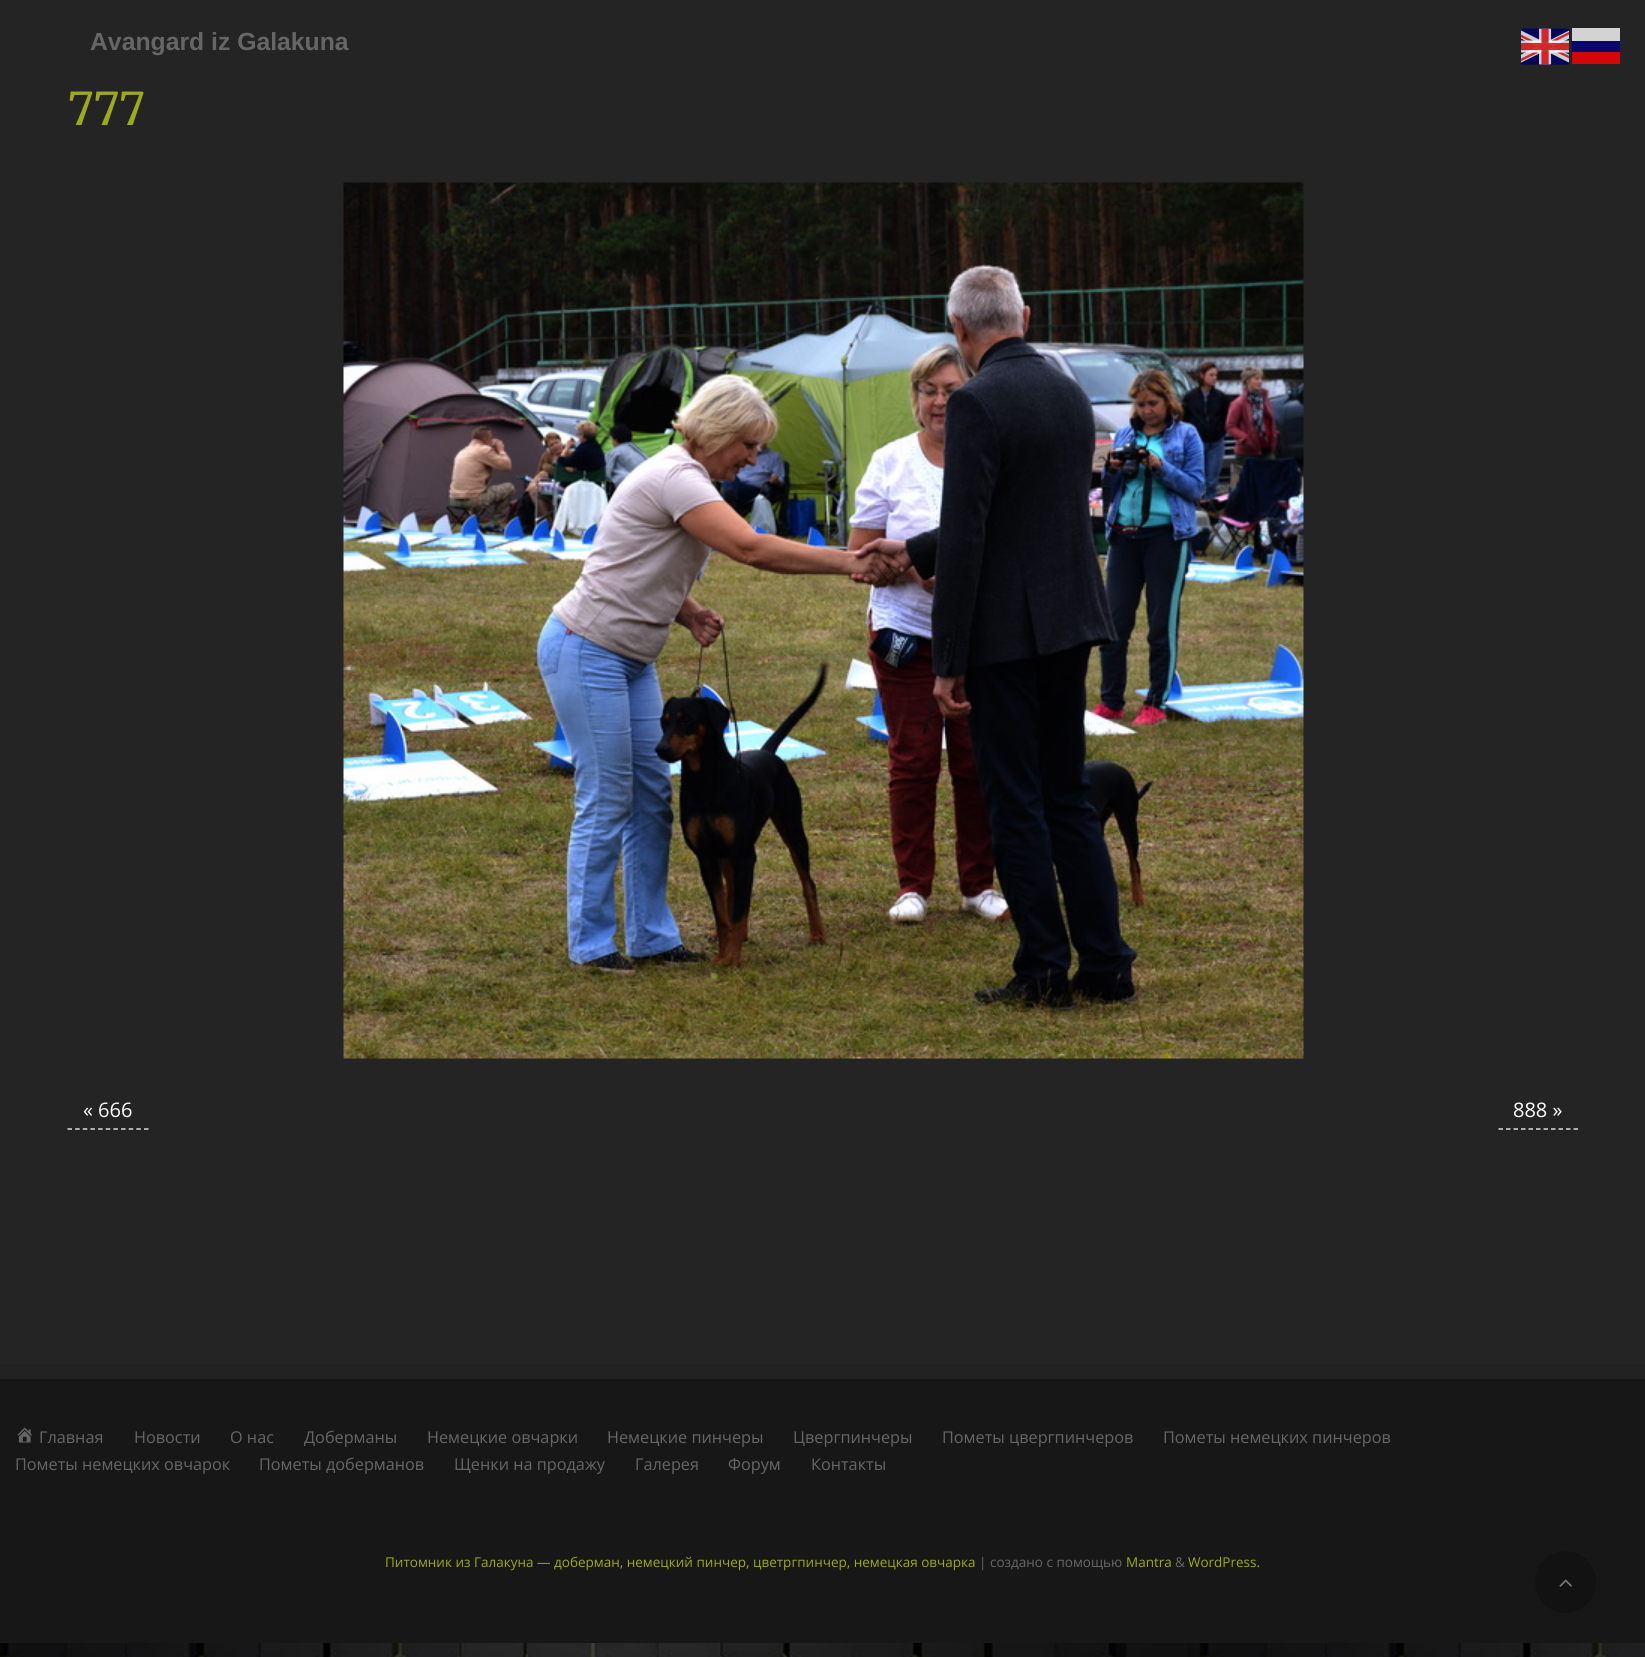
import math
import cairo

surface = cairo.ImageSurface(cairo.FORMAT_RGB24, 1645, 1657)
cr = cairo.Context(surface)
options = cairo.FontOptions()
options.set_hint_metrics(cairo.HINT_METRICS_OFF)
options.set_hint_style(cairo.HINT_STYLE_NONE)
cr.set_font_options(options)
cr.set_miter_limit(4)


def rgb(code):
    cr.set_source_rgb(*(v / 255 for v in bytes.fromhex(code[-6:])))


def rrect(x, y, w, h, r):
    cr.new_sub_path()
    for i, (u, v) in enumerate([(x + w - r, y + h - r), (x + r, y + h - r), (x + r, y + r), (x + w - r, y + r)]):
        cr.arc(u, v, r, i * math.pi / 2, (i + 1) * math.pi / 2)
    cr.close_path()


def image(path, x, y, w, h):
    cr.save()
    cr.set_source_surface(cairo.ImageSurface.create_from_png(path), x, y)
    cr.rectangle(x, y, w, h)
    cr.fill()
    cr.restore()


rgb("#ffffff")
cr.paint()
image("img/1.png", 0, 1643, 1645, 14)
rgb("#242424")
cr.rectangle(0, 0, 1645, 1364)
cr.fill()
image("img/2.png", 343, 182, 961, 877)
cr.new_path()
cr.move_to(67.5, 1129)
cr.line_to(148.5, 1129)
rgb("#dddddd")
cr.set_line_width(1.5)
cr.set_dash([4.5, 3.15])
cr.stroke()
cr.new_path()
cr.move_to(1498.5, 1129)
cr.line_to(1578, 1129)
cr.set_dash([4.5, 3])
cr.stroke()
rgb("#222222")
cr.rectangle(0, 1364, 1645, 15)
cr.fill()
rgb("#171717")
cr.rectangle(0, 1379, 1645, 264)
cr.fill()
image("img/3.png", 17, 1427, 15, 16)
image("img/4.png", 1521, 28, 48, 37)
for x, y, w, h, color in [
    (1572, 28, 48, 13, "#d3d3d3"),
    (1572, 41, 48, 11, "#08086c"),
    (1572, 52, 48, 12, "#d20808"),
]:
    rgb(color)
    cr.rectangle(x, y, w, h)
    cr.fill()
rgb("#121212")
rrect(1535, 1551, 61, 62, 30.5)
cr.fill()
image("img/5.png", 1559, 1579, 13, 8)
cr.select_font_face("Liberation Sans", cairo.FONT_SLANT_NORMAL, cairo.FONT_WEIGHT_BOLD)
cr.set_font_size(24.75)
rgb("#666666")
cr.move_to(90, 50)
cr.show_text("Avangard iz Galakuna")
cr.select_font_face("Merriweather")
cr.set_font_size(45)
rgb("#9da91e")
cr.move_to(68, 125)
cr.show_text("777")
cr.select_font_face("Open Sans")
cr.set_font_size(20)
rgb("#ffffff")
cr.move_to(83, 1117)
cr.show_text("« 666")
cr.move_to(1513, 1117)
cr.show_text("888 »")
cr.set_font_size(16.25)
rgb("#666666")
for x, y, s in [
    (39, 1443, "Главная"),
    (134, 1443, "Новости"),
    (230, 1443, "О нас"),
    (304, 1443, "Доберманы"),
    (427, 1443, "Немецкие овчарки"),
    (607, 1443, "Немецкие пинчеры"),
    (793, 1443, "Цвергпинчеры"),
    (942, 1443, "Пометы цвергпинчеров"),
    (1163, 1443, "Пометы немецких пинчеров"),
    (15, 1470, "Пометы немецких овчарок"),
    (259, 1470, "Пометы доберманов"),
    (454, 1470, "Щенки на продажу"),
    (635, 1470, "Галерея"),
    (728, 1470, "Форум"),
    (811, 1470, "Контакты"),
]:
    cr.move_to(x, y)
    cr.show_text(s)
cr.set_font_size(13.5)
rgb("#9da91e")
cr.move_to(385, 1567)
cr.show_text("Питомник из Галакуна — доберман, немецкий пинчер, цветргпинчер, немецкая овчарка")
rgb("#666666")
cr.move_to(979, 1567)
cr.show_text("| создано с помощью")
rgb("#9da91e")
cr.move_to(1126, 1567)
cr.show_text("Mantra")
rgb("#666666")
cr.move_to(1175, 1567)
cr.show_text("&")
rgb("#9da91e")
cr.move_to(1188, 1567)
cr.show_text("WordPress.")
surface.write_to_png("page.png")
